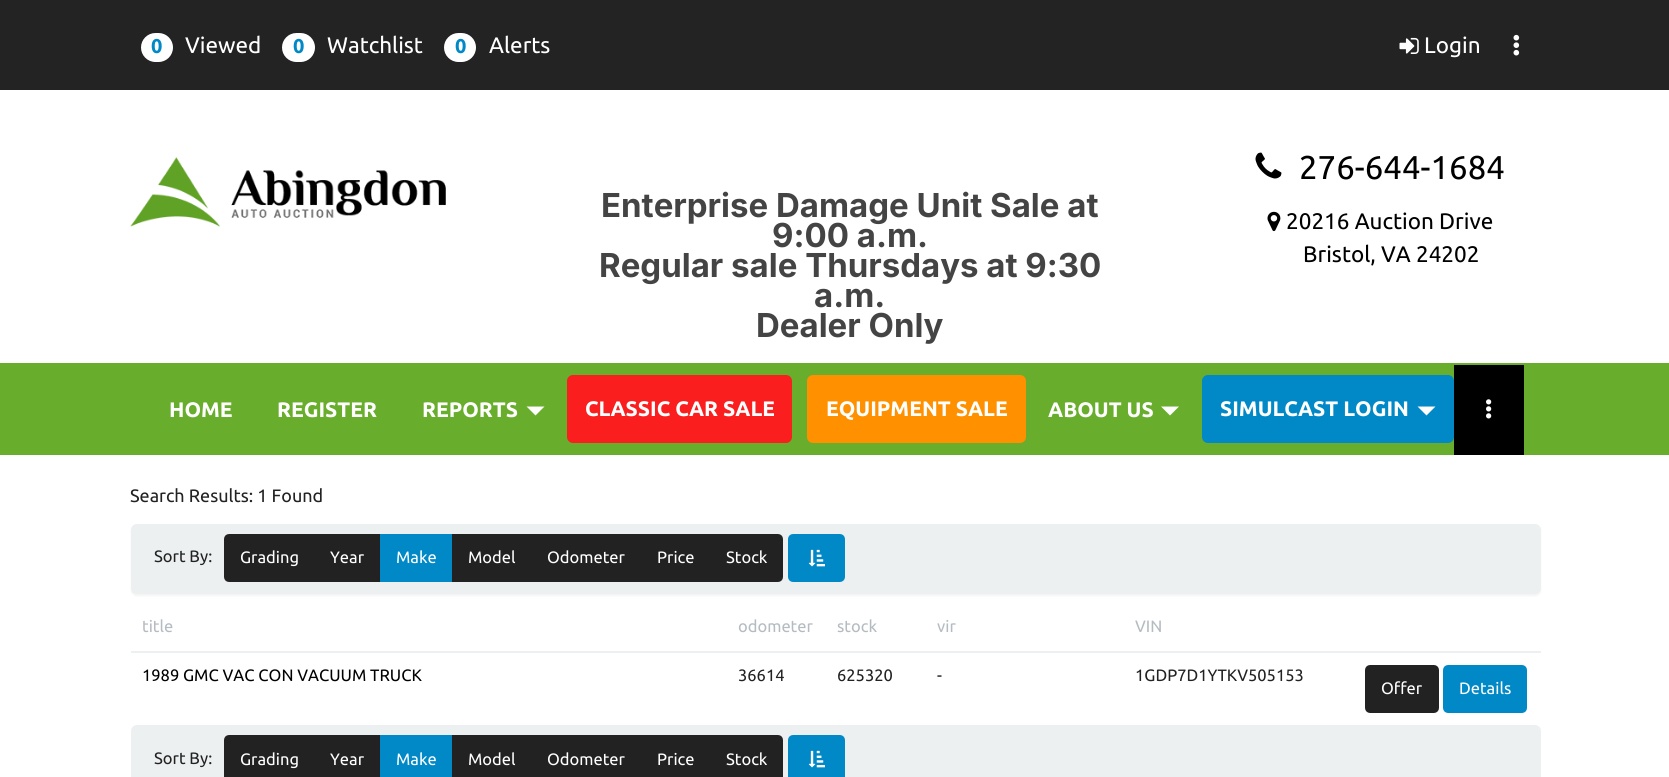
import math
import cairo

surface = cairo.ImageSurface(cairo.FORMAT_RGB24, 1669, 777)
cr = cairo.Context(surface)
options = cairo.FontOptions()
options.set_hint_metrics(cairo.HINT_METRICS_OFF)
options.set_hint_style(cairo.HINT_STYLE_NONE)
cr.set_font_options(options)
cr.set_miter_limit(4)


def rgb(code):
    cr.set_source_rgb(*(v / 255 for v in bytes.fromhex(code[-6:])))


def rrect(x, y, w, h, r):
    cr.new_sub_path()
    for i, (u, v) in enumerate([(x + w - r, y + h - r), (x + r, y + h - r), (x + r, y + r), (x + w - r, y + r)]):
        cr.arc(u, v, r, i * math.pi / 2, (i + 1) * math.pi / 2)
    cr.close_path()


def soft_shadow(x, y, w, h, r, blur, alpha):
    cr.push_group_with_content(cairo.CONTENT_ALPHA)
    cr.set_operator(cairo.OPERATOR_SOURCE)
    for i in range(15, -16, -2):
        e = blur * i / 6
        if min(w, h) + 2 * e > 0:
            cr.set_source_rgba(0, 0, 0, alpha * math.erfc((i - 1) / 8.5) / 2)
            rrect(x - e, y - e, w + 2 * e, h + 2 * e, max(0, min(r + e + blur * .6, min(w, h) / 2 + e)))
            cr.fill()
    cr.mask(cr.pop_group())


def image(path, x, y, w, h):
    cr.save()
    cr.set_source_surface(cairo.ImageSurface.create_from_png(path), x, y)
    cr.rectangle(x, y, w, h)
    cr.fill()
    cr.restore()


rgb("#ffffff")
cr.paint()
rgb("#232323")
cr.rectangle(0, 0, 1669, 90)
cr.fill()
rgb("#ffffff")
rrect(141, 33, 32, 29, 14.5)
cr.fill()
rrect(282, 33, 33, 29, 14.5)
cr.fill()
rrect(444, 33, 32, 29, 14.5)
cr.fill()
image("img/1.png", 1399, 37, 20, 17)
image("img/2.png", 1513, 34, 7, 22)
image("img/3.png", 130, 157, 316, 70)
image("img/4.png", 1255, 152, 27, 27)
image("img/5.png", 1267, 211, 14, 21)
rgb("#68ad2b")
cr.rectangle(0, 363, 1669, 92)
cr.fill()
rgb("#ffffff")
cr.new_path()
cr.move_to(526.5, 406.5)
cr.line_to(544.5, 406.5)
cr.line_to(535.5, 415.5)
cr.close_path()
cr.fill()
rgb("#fa1e1e")
rrect(567, 375, 225, 68, 6)
cr.fill()
rgb("#ff9000")
rrect(807, 375, 219, 68, 6)
cr.fill()
rgb("#ffffff")
cr.new_path()
cr.move_to(1161, 406.5)
cr.line_to(1179, 406.5)
cr.line_to(1170, 415.5)
cr.close_path()
cr.fill()
rgb("#0088c7")
rrect(1202, 375, 252, 68, 6)
cr.fill()
rgb("#ffffff")
cr.new_path()
cr.move_to(1417.5, 406.5)
cr.line_to(1435.5, 406.5)
cr.line_to(1426.5, 415.5)
cr.close_path()
cr.fill()
rgb("#000000")
cr.rectangle(1454, 365, 70, 90)
cr.fill()
image("img/6.png", 1486, 399, 6, 20)
rgb("#000000")
soft_shadow(131, 525, 1410, 71, 6, 1, 0.05)
rrect(132, 525, 1408, 68, 5)
rgb("#ecf0f1")
cr.stroke()
cr.new_path()
cr.move_to(137, 525)
cr.line_to(1534, 525)
cr.curve_to(1537, 525, 1539, 527, 1539, 530)
cr.line_to(1539, 593)
cr.line_to(132, 593)
cr.line_to(132, 530)
cr.curve_to(132, 527, 134, 525, 137, 525)
cr.close_path()
cr.fill()
rgb("#222222")
cr.new_path()
cr.move_to(229, 535.5)
cr.line_to(313.5, 535.5)
cr.line_to(313.5, 580.5)
cr.line_to(229, 580.5)
cr.curve_to(227, 580.5, 225.5, 579, 225.5, 577)
cr.line_to(225.5, 539)
cr.curve_to(225.5, 537, 227, 535.5, 229, 535.5)
cr.close_path()
cr.fill_preserve()
cr.set_line_width(3)
cr.stroke()
for x, y, w, h, color in [
    (315, 534, 65, 48, "#222222"),
    (380, 534, 72, 48, "#0088c7"),
    (452, 534, 258, 48, "#222222"),
]:
    rgb(color)
    cr.rectangle(x, y, w, h)
    cr.fill()
cr.new_path()
cr.move_to(711.5, 535.5)
cr.line_to(778, 535.5)
cr.curve_to(780, 535.5, 781.5, 537, 781.5, 539)
cr.line_to(781.5, 577)
cr.curve_to(781.5, 579, 780, 580.5, 778, 580.5)
cr.line_to(711.5, 580.5)
cr.close_path()
cr.fill_preserve()
cr.stroke()
rgb("#0088c7")
rrect(789.5, 535.5, 54, 45, 3.5)
cr.fill_preserve()
cr.stroke()
image("img/7.png", 808, 549, 17, 18)
rgb("#ecf0f1")
cr.rectangle(131, 651, 1410, 2)
cr.fill()
rgb("#222222")
rrect(1366.5, 666.5, 71, 45, 3.5)
cr.fill_preserve()
cr.stroke()
rgb("#0088c7")
rrect(1444.5, 666.5, 81, 45, 3.5)
cr.fill_preserve()
cr.stroke()
rrect(132, 726, 1408, 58, 5)
rgb("#ecf0f1")
cr.set_line_width(2)
cr.stroke()
cr.new_path()
cr.move_to(137, 726)
cr.line_to(1534, 726)
cr.curve_to(1537, 726, 1539, 728, 1539, 731)
cr.line_to(1539, 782)
cr.line_to(132, 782)
cr.line_to(132, 731)
cr.curve_to(132, 728, 134, 726, 137, 726)
cr.close_path()
cr.fill()
rgb("#222222")
cr.new_path()
cr.move_to(229, 736.5)
cr.line_to(313.5, 736.5)
cr.line_to(313.5, 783.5)
cr.line_to(229, 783.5)
cr.curve_to(227, 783.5, 225.5, 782, 225.5, 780)
cr.line_to(225.5, 740)
cr.curve_to(225.5, 738, 227, 736.5, 229, 736.5)
cr.close_path()
cr.fill_preserve()
cr.set_line_width(3)
cr.stroke()
for x, y, w, h, color in [
    (315, 735, 65, 42, "#222222"),
    (380, 735, 72, 42, "#0088c7"),
    (452, 735, 258, 42, "#222222"),
]:
    rgb(color)
    cr.rectangle(x, y, w, h)
    cr.fill()
cr.new_path()
cr.move_to(711.5, 736.5)
cr.line_to(778, 736.5)
cr.curve_to(780, 736.5, 781.5, 738, 781.5, 740)
cr.line_to(781.5, 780)
cr.curve_to(781.5, 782, 780, 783.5, 778, 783.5)
cr.line_to(711.5, 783.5)
cr.close_path()
cr.fill_preserve()
cr.stroke()
rgb("#0088c7")
rrect(789.5, 736.5, 54, 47, 3.5)
cr.fill_preserve()
cr.stroke()
image("img/7.png", 808, 750, 17, 18)
cr.select_font_face("Ubuntu", cairo.FONT_SLANT_NORMAL, cairo.FONT_WEIGHT_BOLD)
cr.set_font_size(20)
cr.move_to(151, 53)
cr.show_text("0")
cr.select_font_face("Ubuntu")
cr.set_font_size(22.5)
rgb("#ffffff")
cr.move_to(185, 53)
cr.show_text("Viewed")
cr.select_font_face("Ubuntu", cairo.FONT_SLANT_NORMAL, cairo.FONT_WEIGHT_BOLD)
cr.set_font_size(20)
rgb("#0088c7")
cr.move_to(293, 53)
cr.show_text("0")
cr.select_font_face("Ubuntu")
cr.set_font_size(22.5)
rgb("#ffffff")
cr.move_to(327, 53)
cr.show_text("Watchlist")
cr.select_font_face("Ubuntu", cairo.FONT_SLANT_NORMAL, cairo.FONT_WEIGHT_BOLD)
cr.set_font_size(20)
rgb("#0088c7")
cr.move_to(455, 53)
cr.show_text("0")
cr.select_font_face("Ubuntu")
cr.set_font_size(22.5)
rgb("#ffffff")
cr.move_to(489, 53)
cr.show_text("Alerts")
cr.move_to(1424, 53)
cr.show_text("Login")
cr.select_font_face("Inter", cairo.FONT_SLANT_NORMAL, cairo.FONT_WEIGHT_BOLD)
cr.set_font_size(33)
rgb("#444444")
for x, y, s in [
    (601, 217, "Enterprise Damage Unit Sale at"),
    (772, 247, "9:00 a.m."),
    (599, 277, "Regular sale Thursdays at 9:30"),
    (814, 307, "a.m."),
    (756, 337, "Dealer Only"),
]:
    cr.move_to(x, y)
    cr.show_text(s)
cr.select_font_face("Ubuntu")
rgb("#000000")
cr.move_to(1299, 179)
cr.show_text("276-644-1684")
cr.set_font_size(22.5)
cr.move_to(1286, 229)
cr.show_text("20216 Auction Drive")
cr.move_to(1303, 262)
cr.show_text("Bristol, VA 24202")
cr.select_font_face("Ubuntu", cairo.FONT_SLANT_NORMAL, cairo.FONT_WEIGHT_BOLD)
cr.set_font_size(21)
rgb("#ffffff")
for x, y, s in [
    (169, 417, "HOME"),
    (277, 417, "REGISTER"),
    (422, 417, "REPORTS"),
    (585, 416, "CLASSIC CAR SALE"),
    (826, 416, "EQUIPMENT SALE"),
    (1048, 417, "ABOUT US"),
    (1220, 416, "SIMULCAST LOGIN"),
]:
    cr.move_to(x, y)
    cr.show_text(s)
cr.select_font_face("Ubuntu")
cr.set_font_size(18)
rgb("#222222")
cr.move_to(130, 502)
cr.show_text("Search Results: 1 Found")
cr.set_font_size(16.5)
cr.move_to(154, 562)
cr.show_text("Sort By:")
rgb("#ffffff")
for x, y, s in [
    (240, 563, "Grading"),
    (330, 563, "Year"),
    (396, 563, "Make"),
    (468, 563, "Model"),
    (547, 563, "Odometer"),
    (657, 563, "Price"),
    (726, 563, "Stock"),
]:
    cr.move_to(x, y)
    cr.show_text(s)
rgb("#b4bcc2")
for x, y, s in [
    (142, 632, "title"),
    (738, 632, "odometer"),
    (837, 632, "stock"),
    (937, 632, "vir"),
    (1135, 632, "VIN"),
]:
    cr.move_to(x, y)
    cr.show_text(s)
rgb("#000000")
cr.move_to(142, 681)
cr.show_text("1989 GMC VAC CON VACUUM TRUCK")
rgb("#222222")
for x, y, s in [
    (738, 681, "36614"),
    (837, 681, "625320"),
    (937, 681, "-"),
    (1135, 681, "1GDP7D1YTKV505153"),
]:
    cr.move_to(x, y)
    cr.show_text(s)
rgb("#ffffff")
cr.move_to(1381, 694)
cr.show_text("Offer")
cr.move_to(1459, 694)
cr.show_text("Details")
rgb("#222222")
cr.move_to(154, 764)
cr.show_text("Sort By:")
rgb("#ffffff")
for x, y, s in [
    (240, 765, "Grading"),
    (330, 765, "Year"),
    (396, 765, "Make"),
    (468, 765, "Model"),
    (547, 765, "Odometer"),
    (657, 765, "Price"),
    (726, 765, "Stock"),
]:
    cr.move_to(x, y)
    cr.show_text(s)
surface.write_to_png("page.png")
